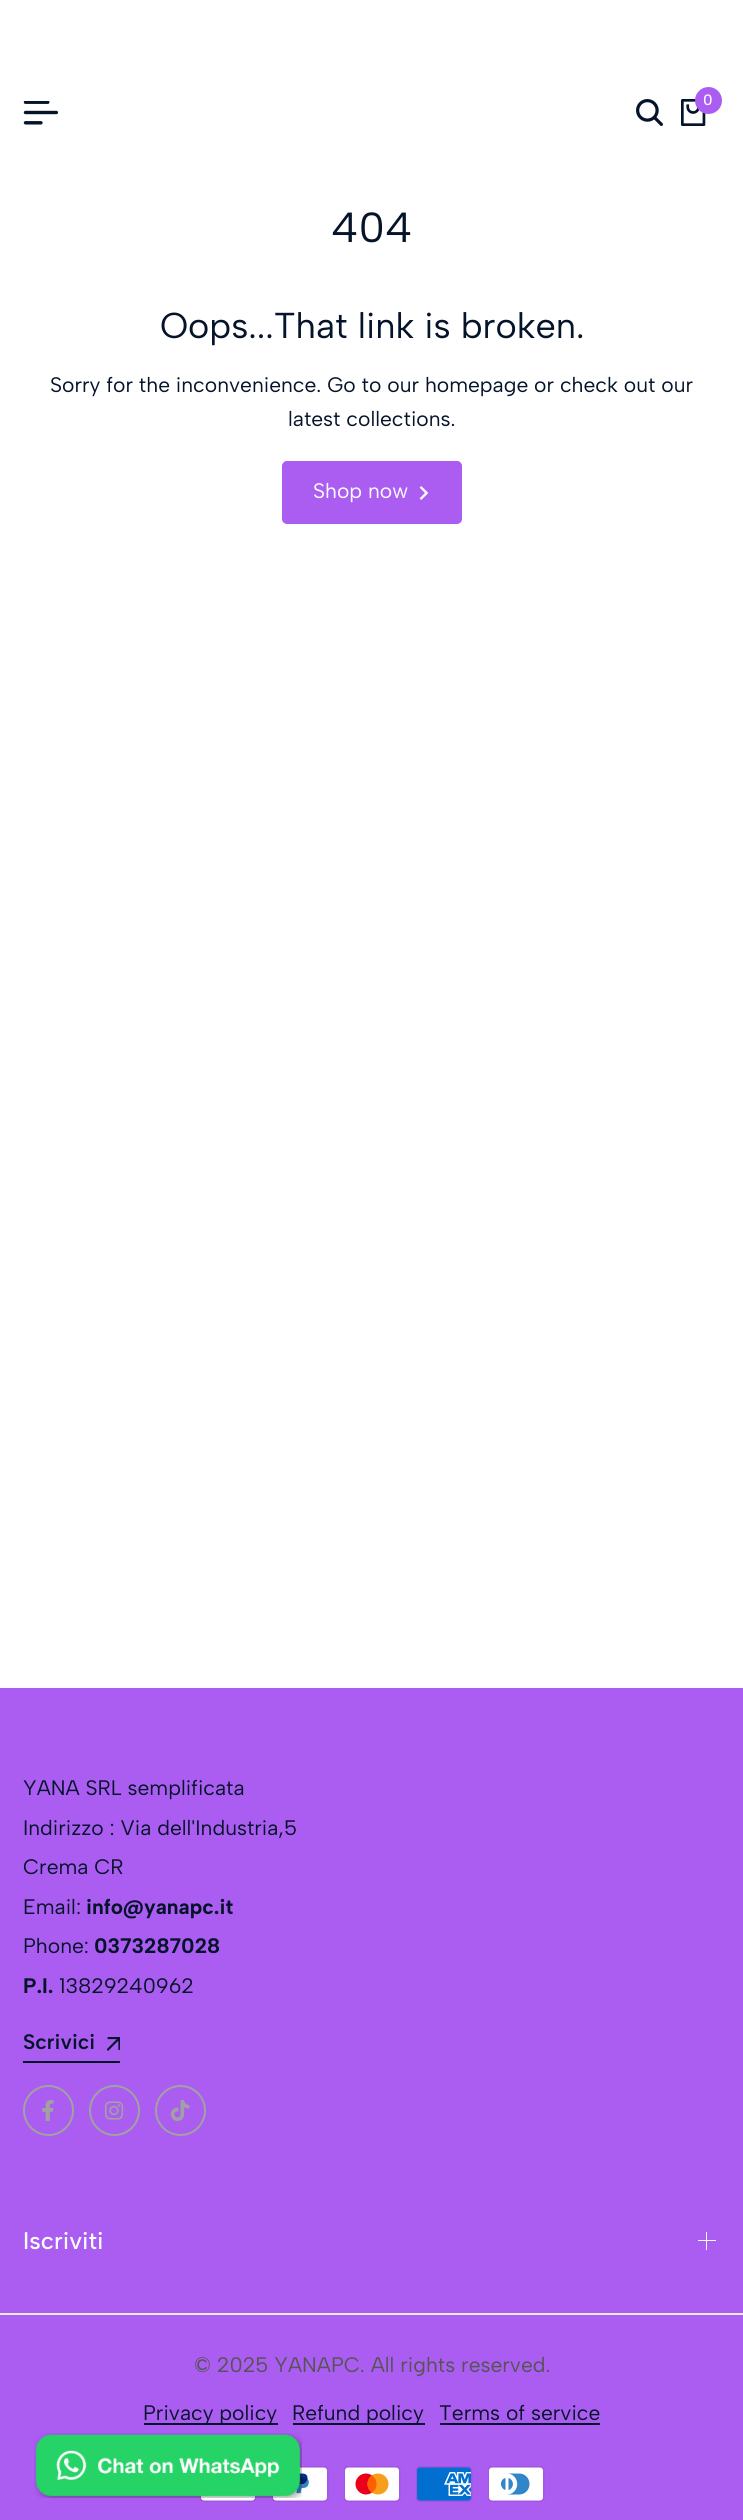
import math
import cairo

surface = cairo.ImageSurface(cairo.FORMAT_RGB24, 743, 2520)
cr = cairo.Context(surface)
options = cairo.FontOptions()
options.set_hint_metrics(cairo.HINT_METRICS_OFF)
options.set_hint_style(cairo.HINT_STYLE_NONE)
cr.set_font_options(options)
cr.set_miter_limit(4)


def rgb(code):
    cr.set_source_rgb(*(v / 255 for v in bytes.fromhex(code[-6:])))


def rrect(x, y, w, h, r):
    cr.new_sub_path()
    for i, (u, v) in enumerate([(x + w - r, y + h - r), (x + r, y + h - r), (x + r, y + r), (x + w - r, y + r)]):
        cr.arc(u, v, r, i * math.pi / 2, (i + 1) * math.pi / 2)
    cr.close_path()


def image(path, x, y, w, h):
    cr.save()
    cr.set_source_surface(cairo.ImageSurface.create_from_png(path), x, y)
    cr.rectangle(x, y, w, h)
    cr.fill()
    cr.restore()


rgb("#ffffff")
cr.paint()
image("img/1.png", 23, 101, 36, 24)
image("img/2.png", 636, 99, 27, 27)
image("img/3.png", 681, 99, 25, 27)
rgb("#ab5cf1")
cr.arc(708.5, 100.5, 13.5, 0, 2 * math.pi)
cr.fill()
rrect(283, 462, 178, 61, 4)
cr.fill_preserve()
cr.stroke()
image("img/4.png", 419, 486, 10, 14)
cr.rectangle(0, 1688, 743, 832)
cr.fill()
image("img/5.png", 107, 2037, 13, 14)
rgb("#05142a")
cr.rectangle(23, 2061, 97, 2)
cr.fill()
cr.arc(48.5, 2110.5, 24.5, 0, 2 * math.pi)
rgb("#a1a1a1")
cr.stroke()
image("img/6.png", 42, 2100, 12, 21)
cr.arc(114.5, 2110.5, 24.5, 0, 2 * math.pi)
cr.stroke()
image("img/7.png", 104, 2101, 20, 19)
cr.arc(180.5, 2110.5, 24.5, 0, 2 * math.pi)
cr.stroke()
image("img/8.png", 170, 2100, 20, 21)
for x, y, w, h, color in [
    (706, 2232, 1, 18, "#ffffff"),
    (698, 2240, 18, 1, "#ffffff"),
    (0, 2313, 743, 2, "#ebebeb"),
    (144, 2423, 134, 2, "#05142a"),
    (293, 2423, 132, 2, "#05142a"),
    (440, 2423, 160, 2, "#05142a"),
]:
    rgb(color)
    cr.rectangle(x, y, w, h)
    cr.fill()
image("img/9.png", 200, 2495, 57, 7)
image("img/10.png", 272, 2466, 57, 36)
image("img/11.png", 344, 2466, 57, 36)
image("img/12.png", 416, 2466, 57, 36)
image("img/13.png", 488, 2466, 57, 36)
image("img/14.png", 34, 2433, 268, 65)
cr.select_font_face("Albert Sans Medium")
cr.set_font_size(15)
rgb("#ffffff")
cr.move_to(703, 105)
cr.show_text("0")
cr.select_font_face("Albert Sans")
cr.set_font_size(42)
rgb("#05142a")
cr.move_to(331, 242)
cr.show_text("404")
cr.set_font_size(36)
cr.move_to(160, 338)
cr.show_text("Oops...That link is broken.")
cr.set_font_size(21)
cr.move_to(50, 392)
cr.show_text("Sorry for the inconvenience. Go to our homepage or check out our")
cr.move_to(288, 426)
cr.show_text("latest collections.")
rgb("#ffffff")
cr.move_to(313, 498)
cr.show_text("Shop now")
rgb("#05142a")
for x, y, s in [
    (23, 1795, "YANA SRL semplificata"),
    (23, 1835, "Indirizzo : Via dell'Industria,5"),
    (23, 1874, "Crema CR"),
    (23, 1914, "Email:"),
]:
    cr.move_to(x, y)
    cr.show_text(s)
cr.select_font_face("Albert Sans", cairo.FONT_SLANT_NORMAL, cairo.FONT_WEIGHT_BOLD)
cr.move_to(86, 1914)
cr.show_text("info@yanapc.it")
cr.select_font_face("Albert Sans")
cr.move_to(23, 1953)
cr.show_text("Phone:")
cr.select_font_face("Albert Sans", cairo.FONT_SLANT_NORMAL, cairo.FONT_WEIGHT_BOLD)
cr.move_to(94, 1953)
cr.show_text("0373287028")
cr.move_to(23, 1993)
cr.show_text("P.I.")
cr.select_font_face("Albert Sans")
cr.move_to(59, 1993)
cr.show_text("13829240962")
cr.select_font_face("Albert Sans SemiBold")
cr.move_to(23, 2049)
cr.show_text("Scrivici")
cr.select_font_face("Albert Sans Medium")
cr.set_font_size(24)
rgb("#ffffff")
cr.move_to(23, 2249)
cr.show_text("Iscriviti")
cr.select_font_face("Albert Sans")
cr.set_font_size(21)
rgb("#545454")
cr.move_to(194, 2372)
cr.show_text("© 2025 YANAPC. All rights reserved.")
rgb("#05142a")
for x, y, s in [
    (143, 2420, "Privacy policy"),
    (292, 2420, "Refund policy"),
    (439, 2420, "Terms of service"),
]:
    cr.move_to(x, y)
    cr.show_text(s)
surface.write_to_png("page.png")
